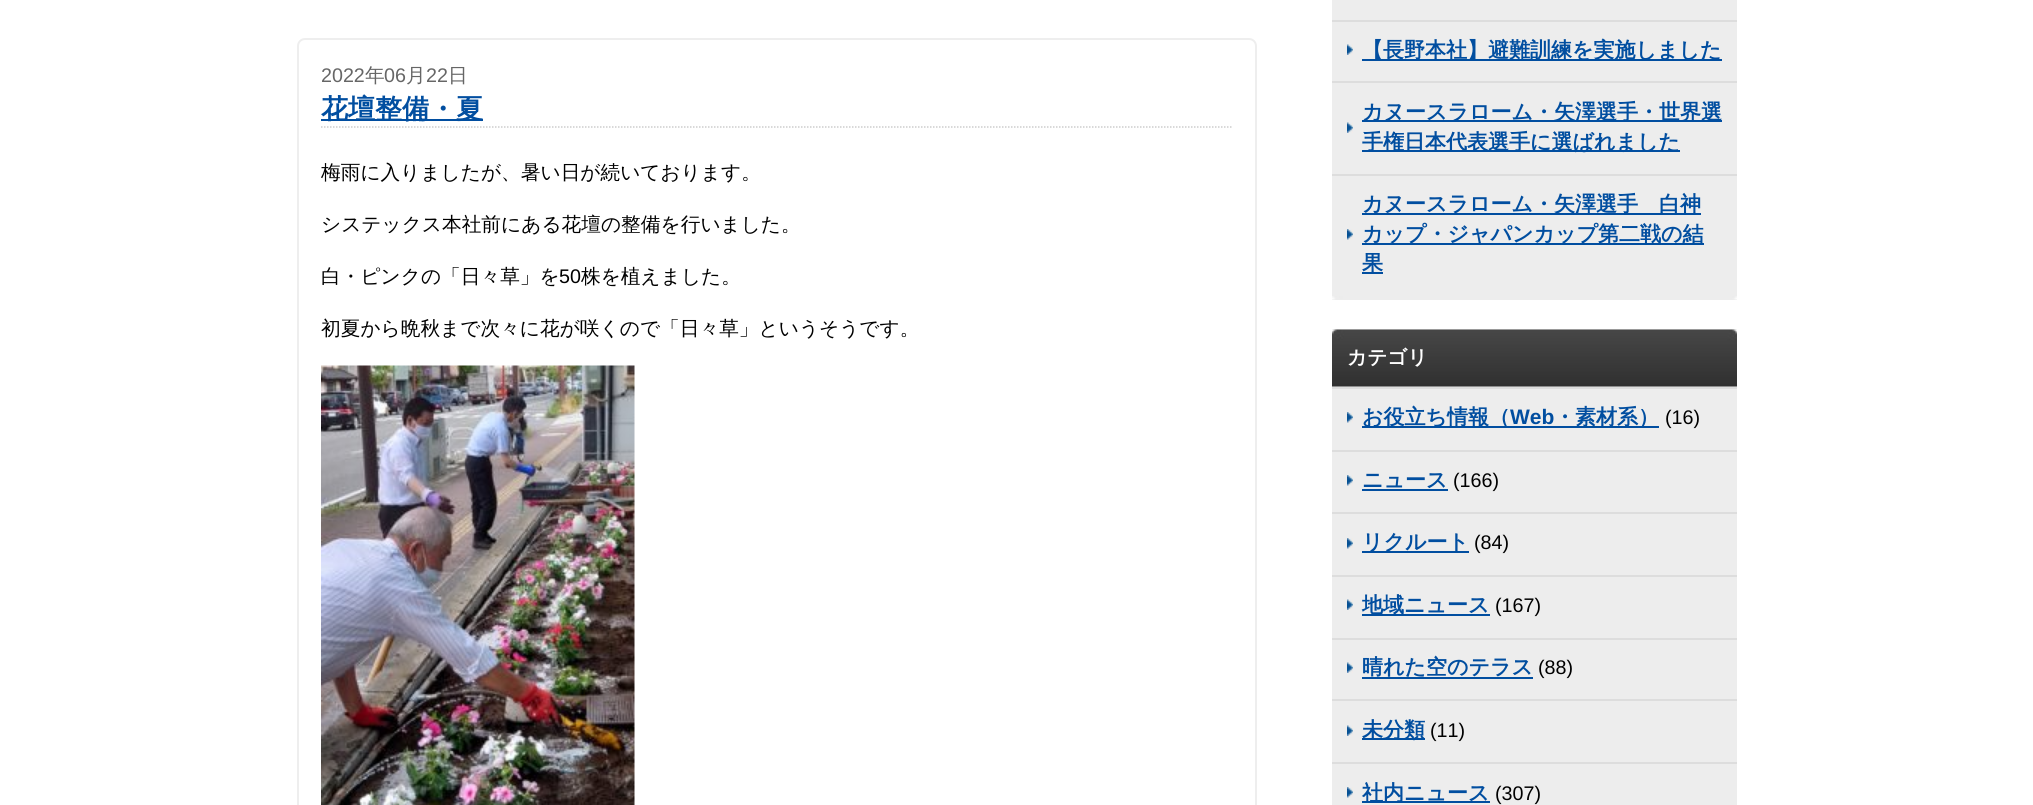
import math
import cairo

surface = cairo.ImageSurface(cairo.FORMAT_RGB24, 2033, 805)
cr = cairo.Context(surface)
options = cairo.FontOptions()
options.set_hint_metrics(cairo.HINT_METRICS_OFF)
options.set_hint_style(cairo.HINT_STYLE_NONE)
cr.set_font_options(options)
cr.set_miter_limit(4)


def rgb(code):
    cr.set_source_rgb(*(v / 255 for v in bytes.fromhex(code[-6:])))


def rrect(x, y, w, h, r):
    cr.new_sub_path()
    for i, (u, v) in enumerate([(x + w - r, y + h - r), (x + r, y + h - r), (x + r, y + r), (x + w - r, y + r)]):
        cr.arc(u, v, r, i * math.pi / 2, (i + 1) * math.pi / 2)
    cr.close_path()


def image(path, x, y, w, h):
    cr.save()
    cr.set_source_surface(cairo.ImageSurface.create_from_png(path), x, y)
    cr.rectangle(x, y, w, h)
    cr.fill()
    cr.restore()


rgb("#ffffff")
cr.paint()
rrect(298, 39, 958, 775, 7)
rgb("#eeeeee")
cr.stroke()
cr.new_path()
cr.move_to(321, 127)
cr.line_to(1233, 127)
rgb("#cccccc")
cr.set_line_width(1.5)
cr.set_dash([1.5, 1.5])
cr.stroke()
rgb("#014ea0")
cr.rectangle(321, 119, 162, 2)
cr.fill()
image("img/1.png", 321, 365, 314, 440)
rgb("#ededed")
cr.rectangle(1332, 0, 405, 300)
cr.fill()
image("img/2.png", 1347, 44, 6, 11)
rgb("#dddddd")
cr.rectangle(1332, 20, 405, 2)
cr.fill()
rgb("#014ea0")
cr.rectangle(1362, 59, 360, 2)
cr.fill()
image("img/2.png", 1347, 122, 6, 11)
for x, y, w, h, color in [
    (1332, 81, 405, 2, "#dddddd"),
    (1362, 120, 360, 2, "#014ea0"),
    (1362, 150, 318, 2, "#014ea0"),
]:
    rgb(color)
    cr.rectangle(x, y, w, h)
    cr.fill()
image("img/3.png", 1347, 229, 6, 11)
for x, y, w, h, color in [
    (1332, 174, 405, 2, "#dddddd"),
    (1362, 213, 339, 2, "#014ea0"),
    (1362, 243, 342, 2, "#014ea0"),
    (1362, 272, 21, 2, "#014ea0"),
]:
    rgb(color)
    cr.rectangle(x, y, w, h)
    cr.fill()
image("img/4.png", 1332, 296, 405, 4)
rgb("#ededed")
cr.rectangle(1332, 329, 405, 476)
cr.fill()
image("img/5.png", 1332, 329, 405, 58)
image("img/3.png", 1347, 412, 6, 11)
rgb("#dddddd")
cr.rectangle(1332, 387, 405, 2)
cr.fill()
rgb("#014ea0")
cr.rectangle(1362, 426, 297, 2)
cr.fill()
image("img/3.png", 1347, 475, 6, 11)
rgb("#dddddd")
cr.rectangle(1332, 450, 405, 2)
cr.fill()
rgb("#014ea0")
cr.rectangle(1362, 489, 86, 2)
cr.fill()
image("img/3.png", 1347, 538, 6, 11)
rgb("#dddddd")
cr.rectangle(1332, 512, 405, 2)
cr.fill()
rgb("#014ea0")
cr.rectangle(1362, 551, 107, 2)
cr.fill()
image("img/2.png", 1347, 599, 6, 11)
rgb("#dddddd")
cr.rectangle(1332, 575, 405, 2)
cr.fill()
rgb("#014ea0")
cr.rectangle(1362, 614, 128, 2)
cr.fill()
image("img/2.png", 1347, 662, 6, 11)
rgb("#dddddd")
cr.rectangle(1332, 638, 405, 2)
cr.fill()
rgb("#014ea0")
cr.rectangle(1362, 677, 171, 2)
cr.fill()
image("img/2.png", 1347, 725, 6, 11)
rgb("#dddddd")
cr.rectangle(1332, 699, 405, 2)
cr.fill()
rgb("#014ea0")
cr.rectangle(1362, 738, 63, 2)
cr.fill()
image("img/3.png", 1347, 787, 6, 11)
rgb("#dddddd")
cr.rectangle(1332, 762, 405, 2)
cr.fill()
rgb("#014ea0")
cr.rectangle(1362, 801, 128, 2)
cr.fill()
cr.select_font_face("Liberation Sans")
cr.set_font_size(19.7)
rgb("#666666")
cr.move_to(321, 82)
cr.show_text("2022")
cr.select_font_face("WenQuanYi Zen Hei Medium")
cr.move_to(365, 82)
cr.show_text("年")
cr.select_font_face("Liberation Sans")
cr.move_to(384, 82)
cr.show_text("06")
cr.select_font_face("WenQuanYi Zen Hei Medium")
cr.move_to(406, 82)
cr.show_text("月")
cr.select_font_face("Liberation Sans")
cr.move_to(426, 82)
cr.show_text("22")
cr.select_font_face("WenQuanYi Zen Hei Medium")
cr.move_to(448, 82)
cr.show_text("日")
cr.select_font_face("WenQuanYi Zen Hei", cairo.FONT_SLANT_NORMAL, cairo.FONT_WEIGHT_BOLD)
cr.set_font_size(27)
rgb("#014ea0")
cr.move_to(321, 118)
cr.show_text("花壇整備・夏")
cr.select_font_face("WenQuanYi Zen Hei Medium")
cr.set_font_size(19.7)
rgb("#000000")
for x, y, s in [
    (321, 179, "梅雨に入りましたが、暑い日が続いております。"),
    (321, 231, "システックス本社前にある花壇の整備を行いました。"),
    (321, 283, "白・ピンクの「日々草」を"),
]:
    cr.move_to(x, y)
    cr.show_text(s)
cr.select_font_face("Liberation Sans")
cr.move_to(559, 283)
cr.show_text("50")
cr.select_font_face("WenQuanYi Zen Hei Medium")
cr.move_to(581, 283)
cr.show_text("株を植えました。")
cr.move_to(321, 335)
cr.show_text("初夏から晩秋まで次々に花が咲くので「日々草」というそうです。")
cr.select_font_face("WenQuanYi Zen Hei", cairo.FONT_SLANT_NORMAL, cairo.FONT_WEIGHT_BOLD)
cr.set_font_size(21)
rgb("#014ea0")
for x, y, s in [
    (1362, 57, "【長野本社】避難訓練を実施しました"),
    (1362, 119, "カヌースラローム・矢澤選手・世界選"),
    (1362, 149, "手権日本代表選手に選ばれました"),
    (1362, 211, "カヌースラローム・矢澤選手　白神"),
    (1362, 241, "カップ・ジャパンカップ第二戦の結"),
    (1362, 270, "果"),
]:
    cr.move_to(x, y)
    cr.show_text(s)
cr.set_font_size(19.7)
rgb("#ffffff")
cr.move_to(1347, 364)
cr.show_text("カテゴリ")
cr.set_font_size(21)
rgb("#014ea0")
cr.move_to(1362, 424)
cr.show_text("お役立ち情報（")
cr.select_font_face("Liberation Sans", cairo.FONT_SLANT_NORMAL, cairo.FONT_WEIGHT_BOLD)
cr.move_to(1510, 424)
cr.show_text("Web")
cr.select_font_face("WenQuanYi Zen Hei", cairo.FONT_SLANT_NORMAL, cairo.FONT_WEIGHT_BOLD)
cr.move_to(1554, 424)
cr.show_text("・素材系）")
cr.select_font_face("Liberation Sans")
cr.set_font_size(19.7)
rgb("#000000")
cr.move_to(1665, 424)
cr.show_text("(16)")
cr.select_font_face("WenQuanYi Zen Hei", cairo.FONT_SLANT_NORMAL, cairo.FONT_WEIGHT_BOLD)
cr.set_font_size(21)
rgb("#014ea0")
cr.move_to(1362, 487)
cr.show_text("ニュース")
cr.select_font_face("Liberation Sans")
cr.set_font_size(19.7)
rgb("#000000")
cr.move_to(1453, 487)
cr.show_text("(166)")
cr.select_font_face("WenQuanYi Zen Hei", cairo.FONT_SLANT_NORMAL, cairo.FONT_WEIGHT_BOLD)
cr.set_font_size(21)
rgb("#014ea0")
cr.move_to(1362, 549)
cr.show_text("リクルート")
cr.select_font_face("Liberation Sans")
cr.set_font_size(19.7)
rgb("#000000")
cr.move_to(1474, 549)
cr.show_text("(84)")
cr.select_font_face("WenQuanYi Zen Hei", cairo.FONT_SLANT_NORMAL, cairo.FONT_WEIGHT_BOLD)
cr.set_font_size(21)
rgb("#014ea0")
cr.move_to(1362, 612)
cr.show_text("地域ニュース")
cr.select_font_face("Liberation Sans")
cr.set_font_size(19.7)
rgb("#000000")
cr.move_to(1495, 612)
cr.show_text("(167)")
cr.select_font_face("WenQuanYi Zen Hei", cairo.FONT_SLANT_NORMAL, cairo.FONT_WEIGHT_BOLD)
cr.set_font_size(21)
rgb("#014ea0")
cr.move_to(1362, 674)
cr.show_text("晴れた空のテラス")
cr.select_font_face("Liberation Sans")
cr.set_font_size(19.7)
rgb("#000000")
cr.move_to(1538, 674)
cr.show_text("(88)")
cr.select_font_face("WenQuanYi Zen Hei", cairo.FONT_SLANT_NORMAL, cairo.FONT_WEIGHT_BOLD)
cr.set_font_size(21)
rgb("#014ea0")
cr.move_to(1362, 737)
cr.show_text("未分類")
cr.select_font_face("Liberation Sans")
cr.set_font_size(19.7)
rgb("#000000")
cr.move_to(1430, 737)
cr.show_text("(11)")
cr.select_font_face("WenQuanYi Zen Hei", cairo.FONT_SLANT_NORMAL, cairo.FONT_WEIGHT_BOLD)
cr.set_font_size(21)
rgb("#014ea0")
cr.move_to(1362, 800)
cr.show_text("社内ニュース")
cr.select_font_face("Liberation Sans")
cr.set_font_size(19.7)
rgb("#000000")
cr.move_to(1495, 800)
cr.show_text("(307)")
surface.write_to_png("page.png")
